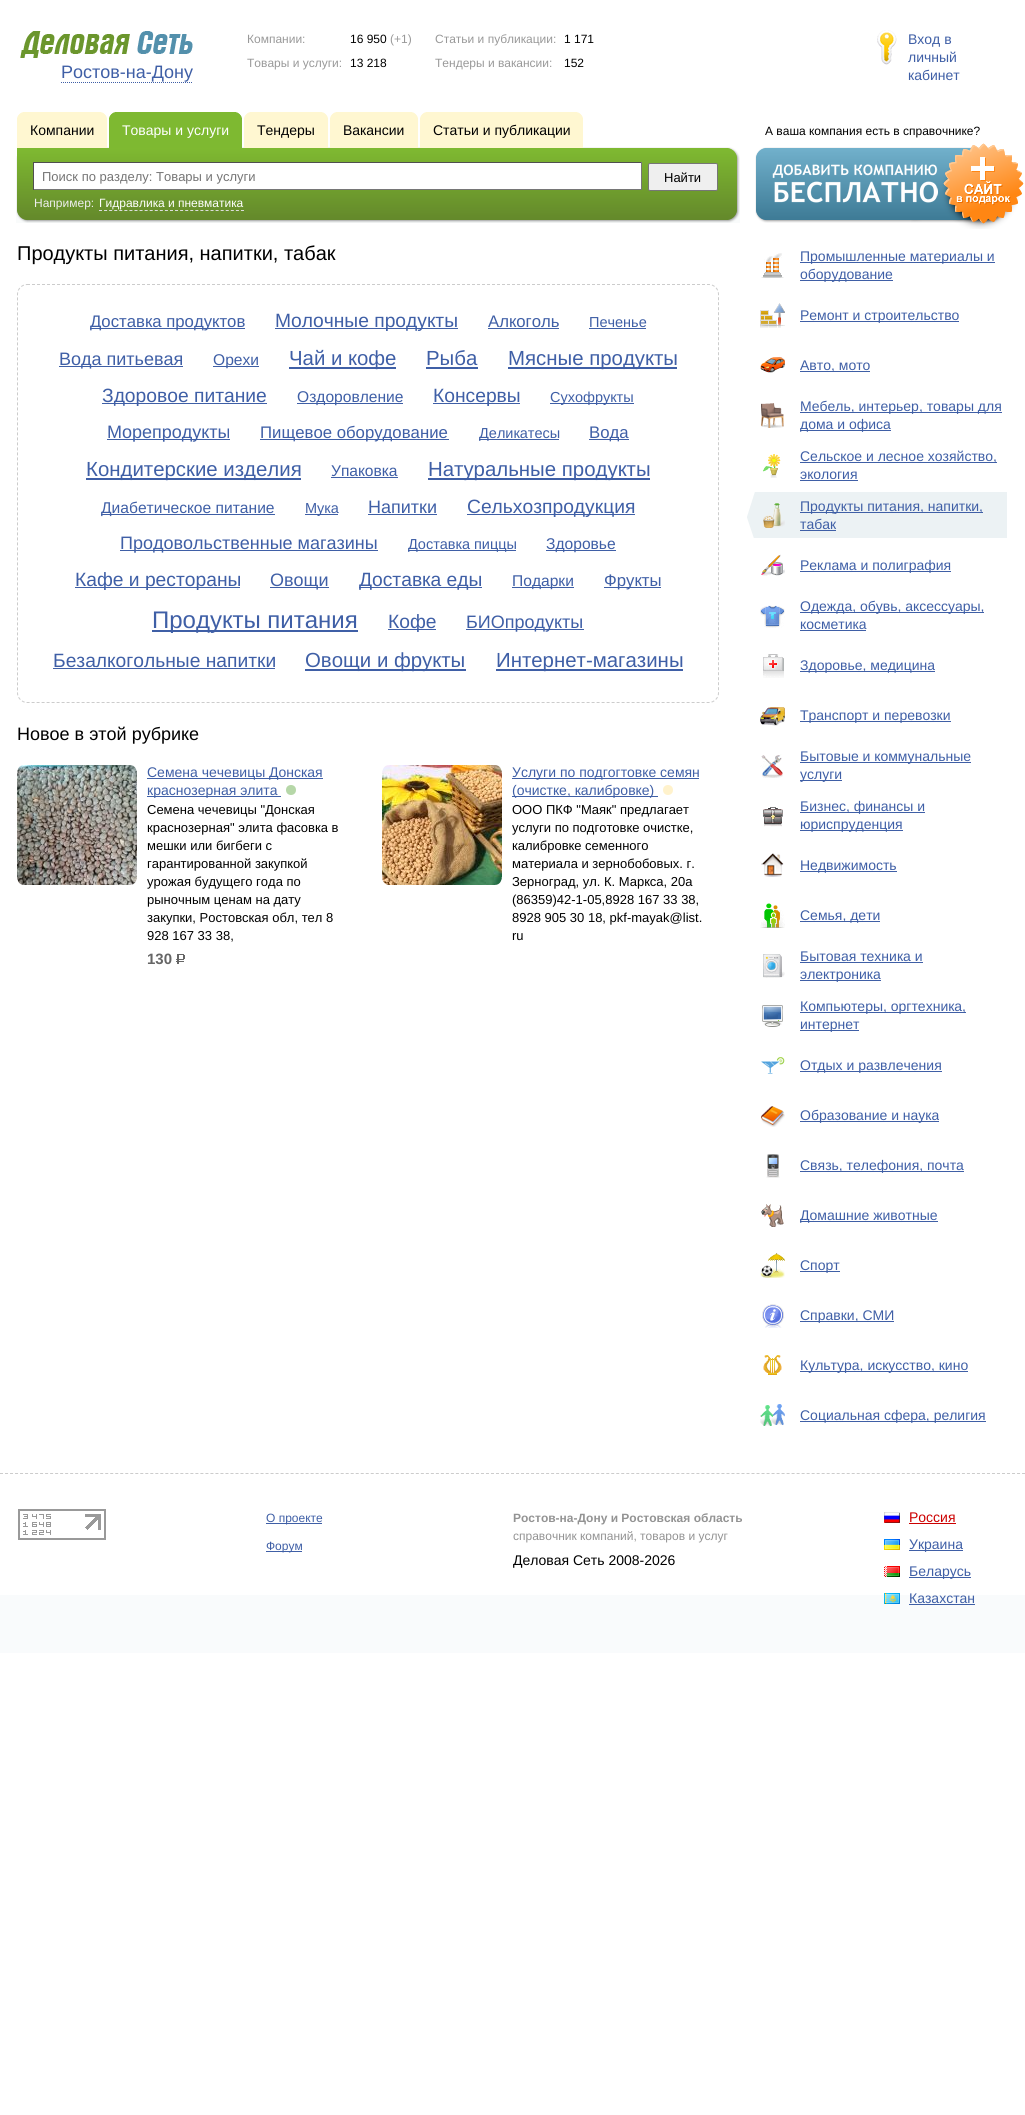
import math
import cairo

surface = cairo.ImageSurface(cairo.FORMAT_RGB24, 1025, 2115)
cr = cairo.Context(surface)
options = cairo.FontOptions()
options.set_hint_metrics(cairo.HINT_METRICS_OFF)
options.set_hint_style(cairo.HINT_STYLE_NONE)
cr.set_font_options(options)
cr.set_miter_limit(4)


def rgb(code):
    cr.set_source_rgb(*(v / 255 for v in bytes.fromhex(code[-6:])))


def rrect(x, y, w, h, r):
    cr.new_sub_path()
    for i, (u, v) in enumerate([(x + w - r, y + h - r), (x + r, y + h - r), (x + r, y + r), (x + w - r, y + r)]):
        cr.arc(u, v, r, i * math.pi / 2, (i + 1) * math.pi / 2)
    cr.close_path()


def image(path, x, y, w, h):
    cr.save()
    cr.set_source_surface(cairo.ImageSurface.create_from_png(path), x, y)
    cr.rectangle(x, y, w, h)
    cr.fill()
    cr.restore()


rgb("#ffffff")
cr.paint()
image("img/1.png", 20, 31, 173, 27)
cr.new_path()
cr.move_to(61, 82.5)
cr.line_to(193, 82.5)
rgb("#3f5fa6")
cr.set_line_width(1)
cr.set_dash([1, 1])
cr.stroke()
image("img/2.png", 877, 30, 20, 35)
image("img/7.png", 17, 147, 711, 76)
rgb("#fff7d1")
cr.rectangle(17, 112, 90, 36)
cr.fill()
image("img/3.png", 101, 112, 6, 6)
image("img/4.png", 17, 112, 6, 6)
rgb("#7eb931")
cr.rectangle(109, 112, 133, 36)
cr.fill()
image("img/5.png", 236, 112, 6, 6)
image("img/6.png", 109, 112, 6, 6)
rgb("#fff7d1")
cr.rectangle(244, 112, 84, 36)
cr.fill()
image("img/3.png", 322, 112, 6, 6)
image("img/4.png", 244, 112, 6, 6)
cr.rectangle(330, 112, 88, 36)
cr.fill()
image("img/3.png", 412, 112, 6, 6)
image("img/4.png", 330, 112, 6, 6)
cr.rectangle(420, 112, 163, 36)
cr.fill()
image("img/3.png", 577, 112, 6, 6)
image("img/4.png", 420, 112, 6, 6)
image("img/8.png", 16, 156, 11, 67)
for x, y, w, h, color in [
    (34, 163, 607, 26, "#ffffff"),
    (33, 162, 609, 1, "#4f4f4f"),
    (641, 162, 1, 28, "#767676"),
    (33, 189, 609, 1, "#767676"),
    (33, 162, 1, 28, "#4f4f4f"),
]:
    rgb(color)
    cr.rectangle(x, y, w, h)
    cr.fill()
rgb("#efefef")
rrect(648.5, 163.5, 69, 27, 1.5)
cr.fill_preserve()
rgb("#767676")
cr.set_dash([])
cr.stroke()
image("img/9.png", 728, 147, 12, 76)
cr.new_path()
cr.move_to(99, 210.5)
cr.line_to(244, 210.5)
rgb("#dddddd")
cr.set_dash([3, 2.07])
cr.stroke()
image("img/10.png", 755, 143, 269, 86)
cr.new_path()
cr.move_to(27, 284.5)
cr.line_to(709, 284.5)
cr.curve_to(714, 284.5, 718.5, 289, 718.5, 294)
cr.line_to(718.5, 693)
cr.curve_to(718.5, 698, 714, 702.5, 709, 702.5)
cr.line_to(27, 702.5)
cr.curve_to(22, 702.5, 17.5, 698, 17.5, 693)
cr.line_to(17.5, 294)
cr.curve_to(17.5, 289, 22, 284.5, 27, 284.5)
cr.close_path()
rgb("#cccccc")
cr.set_dash([3, 2])
cr.stroke()
for x, y, w, h, color in [
    (90, 328, 155, 1, "#3f5fa6"),
    (275, 328, 183, 1, "#3f5fa6"),
    (488, 328, 71, 1, "#3f5fa6"),
    (589, 328, 57, 1, "#3f5fa6"),
    (59, 366, 124, 1, "#3f5fa6"),
    (213, 366, 46, 1, "#3f5fa6"),
    (289, 367, 107, 2, "#3f5fa6"),
    (426, 367, 52, 2, "#3f5fa6"),
    (508, 367, 169, 2, "#3f5fa6"),
    (102, 403, 165, 1, "#3f5fa6"),
    (297, 403, 106, 1, "#3f5fa6"),
    (433, 403, 87, 1, "#3f5fa6"),
    (550, 403, 84, 1, "#3f5fa6"),
    (107, 439, 123, 1, "#3f5fa6"),
    (260, 439, 189, 1, "#3f5fa6"),
    (479, 439, 80, 1, "#3f5fa6"),
    (589, 439, 40, 1, "#3f5fa6"),
    (86, 478, 215, 2, "#3f5fa6"),
    (331, 477, 67, 1, "#3f5fa6"),
    (428, 478, 222, 2, "#3f5fa6"),
    (101, 514, 174, 1, "#3f5fa6"),
    (305, 514, 33, 1, "#3f5fa6"),
    (368, 514, 69, 1, "#3f5fa6"),
    (467, 514, 168, 1, "#3f5fa6"),
    (120, 550, 258, 1, "#3f5fa6"),
    (408, 550, 108, 1, "#3f5fa6"),
    (546, 550, 70, 1, "#3f5fa6"),
    (75, 587, 165, 1, "#3f5fa6"),
    (270, 587, 59, 1, "#3f5fa6"),
    (359, 587, 123, 1, "#3f5fa6"),
    (512, 587, 62, 1, "#3f5fa6"),
    (604, 587, 57, 1, "#3f5fa6"),
    (152, 630, 206, 2, "#3f5fa6"),
    (388, 629, 48, 1, "#3f5fa6"),
    (466, 629, 118, 1, "#3f5fa6"),
    (53, 668, 222, 1, "#3f5fa6"),
    (305, 669, 161, 2, "#3f5fa6"),
    (496, 669, 187, 2, "#3f5fa6"),
]:
    rgb(color)
    cr.rectangle(x, y, w, h)
    cr.fill()
image("img/11.png", 17, 765, 120, 120)
image("img/12.png", 17, 765, 120, 120)
cr.rectangle(147, 778, 176, 1)
cr.fill()
cr.rectangle(147, 796, 134, 1)
cr.fill()
rgb("#b6d7a8")
cr.arc(291, 790, 5, 0, 2 * math.pi)
cr.fill()
image("img/13.png", 176, 954, 9, 10)
image("img/14.png", 382, 765, 120, 120)
image("img/15.png", 382, 765, 120, 120)
rgb("#3f5fa6")
cr.rectangle(512, 778, 187, 1)
cr.fill()
cr.rectangle(512, 796, 146, 1)
cr.fill()
rgb("#fff2cc")
cr.arc(668, 790, 5, 0, 2 * math.pi)
cr.fill()
image("img/16.png", 761, 253, 23, 25)
rgb("#3f5fa6")
cr.rectangle(800, 262, 195, 1)
cr.fill()
cr.rectangle(800, 280, 93, 1)
cr.fill()
image("img/17.png", 760, 303, 25, 25)
cr.rectangle(800, 321, 159, 1)
cr.fill()
image("img/18.png", 760, 356, 25, 17)
cr.rectangle(800, 371, 70, 1)
cr.fill()
image("img/19.png", 761, 403, 23, 25)
cr.rectangle(800, 412, 202, 1)
cr.fill()
cr.rectangle(800, 430, 91, 1)
cr.fill()
image("img/20.png", 763, 454, 18, 24)
for x, y, w, h, color in [
    (800, 462, 197, 1, "#3f5fa6"),
    (800, 480, 58, 1, "#3f5fa6"),
    (755, 492, 252, 46, "#ecf2f4"),
]:
    rgb(color)
    cr.rectangle(x, y, w, h)
    cr.fill()
image("img/21.png", 747, 492, 8, 46)
image("img/22.png", 763, 503, 22, 25)
rgb("#3f5fa6")
cr.rectangle(800, 512, 183, 1)
cr.fill()
cr.rectangle(800, 530, 36, 1)
cr.fill()
image("img/23.png", 761, 554, 24, 22)
cr.rectangle(800, 571, 151, 1)
cr.fill()
image("img/24.png", 760, 605, 25, 23)
cr.rectangle(800, 612, 184, 1)
cr.fill()
cr.rectangle(800, 630, 66, 1)
cr.fill()
image("img/25.png", 763, 654, 21, 24)
cr.rectangle(800, 671, 135, 1)
cr.fill()
image("img/26.png", 760, 707, 25, 19)
cr.rectangle(800, 721, 151, 1)
cr.fill()
image("img/27.png", 760, 754, 23, 24)
cr.rectangle(800, 762, 171, 1)
cr.fill()
cr.rectangle(800, 780, 42, 1)
cr.fill()
image("img/28.png", 763, 807, 20, 20)
cr.rectangle(800, 812, 125, 1)
cr.fill()
cr.rectangle(800, 830, 103, 1)
cr.fill()
image("img/29.png", 761, 853, 23, 24)
cr.rectangle(800, 871, 97, 1)
cr.fill()
image("img/30.png", 760, 903, 25, 25)
cr.rectangle(800, 921, 80, 1)
cr.fill()
image("img/31.png", 763, 954, 22, 24)
cr.rectangle(800, 962, 123, 1)
cr.fill()
cr.rectangle(800, 980, 81, 1)
cr.fill()
image("img/32.png", 762, 1005, 21, 22)
cr.rectangle(800, 1012, 166, 1)
cr.fill()
cr.rectangle(800, 1030, 59, 1)
cr.fill()
image("img/33.png", 761, 1057, 24, 17)
cr.rectangle(800, 1071, 142, 1)
cr.fill()
image("img/34.png", 761, 1106, 24, 21)
cr.rectangle(800, 1121, 139, 1)
cr.fill()
image("img/35.png", 766, 1154, 14, 24)
cr.rectangle(800, 1171, 164, 1)
cr.fill()
image("img/36.png", 761, 1204, 23, 23)
cr.rectangle(800, 1221, 138, 1)
cr.fill()
image("img/37.png", 760, 1253, 25, 25)
cr.rectangle(800, 1271, 40, 1)
cr.fill()
image("img/38.png", 762, 1304, 23, 24)
cr.rectangle(800, 1321, 94, 1)
cr.fill()
image("img/39.png", 763, 1355, 19, 20)
cr.rectangle(800, 1371, 168, 1)
cr.fill()
image("img/40.png", 760, 1404, 25, 22)
cr.rectangle(800, 1421, 186, 1)
cr.fill()
rgb("#f9fbfc")
cr.rectangle(0, 1595, 1025, 58)
cr.fill()
cr.new_path()
cr.move_to(0, 1473.5)
cr.line_to(1025, 1473.5)
rgb("#cccccc")
cr.set_dash([3, 2.01])
cr.stroke()
image("img/41.png", 18, 1509, 88, 31)
rgb("#3f5fa6")
cr.rectangle(266, 1523, 56, 1)
cr.fill()
cr.rectangle(266, 1551, 36, 1)
cr.fill()
image("img/42.png", 884, 1512, 16, 11)
rgb("#cc0000")
cr.rectangle(909, 1523, 47, 1)
cr.fill()
image("img/43.png", 884, 1539, 16, 11)
rgb("#3f5fa6")
cr.rectangle(909, 1550, 54, 1)
cr.fill()
image("img/44.png", 884, 1566, 16, 11)
cr.rectangle(909, 1577, 62, 1)
cr.fill()
image("img/45.png", 884, 1593, 16, 11)
cr.rectangle(909, 1604, 66, 1)
cr.fill()
cr.select_font_face("Liberation Sans")
cr.set_font_size(18)
cr.move_to(61, 78)
cr.show_text("Ростов-на-Дону")
cr.set_font_size(12)
rgb("#999999")
cr.move_to(247, 43)
cr.show_text("Компании:")
rgb("#000000")
cr.move_to(350, 43)
cr.show_text("16 950")
rgb("#999999")
cr.move_to(390, 43)
cr.show_text("(+1)")
cr.move_to(247, 67)
cr.show_text("Товары и услуги:")
rgb("#000000")
cr.move_to(350, 67)
cr.show_text("13 218")
rgb("#999999")
cr.move_to(435, 43)
cr.show_text("Статьи и публикации:")
rgb("#000000")
cr.move_to(564, 43)
cr.show_text("1 171")
rgb("#999999")
cr.move_to(435, 67)
cr.show_text("Тендеры и вакансии:")
rgb("#000000")
cr.move_to(564, 67)
cr.show_text("152")
cr.set_font_size(14)
rgb("#3f5fa6")
for x, y, s in [
    (908, 44, "Вход в"),
    (908, 62, "личный"),
    (908, 80, "кабинет"),
]:
    cr.move_to(x, y)
    cr.show_text(s)
rgb("#000000")
cr.move_to(30, 135)
cr.show_text("Компании")
rgb("#ffffff")
cr.move_to(122, 135)
cr.show_text("Товары и услуги")
rgb("#000000")
for x, y, s in [
    (257, 135, "Тендеры"),
    (343, 135, "Вакансии"),
    (433, 135, "Статьи и публикации"),
]:
    cr.move_to(x, y)
    cr.show_text(s)
cr.set_font_size(13)
rgb("#757575")
cr.move_to(42, 181)
cr.show_text("Поиск по разделу: Товары и услуги")
rgb("#000000")
cr.move_to(664, 182)
cr.show_text("Найти")
cr.set_font_size(12)
rgb("#eeeeee")
cr.move_to(34, 207)
cr.show_text("Например:")
rgb("#ffffff")
cr.move_to(99, 207)
cr.show_text("Гидравлика и пневматика")
rgb("#000000")
cr.move_to(765, 135)
cr.show_text("А ваша компания есть в справочнике?")
cr.set_font_size(20)
cr.move_to(17, 260)
cr.show_text("Продукты питания, напитки, табак")
cr.set_font_size(16.75)
rgb("#3f5fa6")
cr.move_to(90, 327)
cr.show_text("Доставка продуктов")
cr.set_font_size(19.25)
cr.move_to(275, 327)
cr.show_text("Молочные продукты")
cr.set_font_size(16.75)
cr.move_to(488, 327)
cr.show_text("Алкоголь")
cr.set_font_size(14.5)
cr.move_to(589, 327)
cr.show_text("Печенье")
cr.set_font_size(18)
cr.move_to(59, 365)
cr.show_text("Вода питьевая")
cr.set_font_size(15.6)
cr.move_to(213, 365)
cr.show_text("Орехи")
cr.set_font_size(20.4)
for x, y, s in [
    (289, 365, "Чай и кофе"),
    (426, 365, "Рыба"),
    (508, 365, "Мясные продукты"),
]:
    cr.move_to(x, y)
    cr.show_text(s)
cr.set_font_size(19.25)
cr.move_to(102, 402)
cr.show_text("Здоровое питание")
cr.set_font_size(15.6)
cr.move_to(297, 402)
cr.show_text("Оздоровление")
cr.set_font_size(19.25)
cr.move_to(433, 402)
cr.show_text("Консервы")
cr.set_font_size(14.5)
cr.move_to(550, 402)
cr.show_text("Сухофрукты")
cr.set_font_size(18)
cr.move_to(107, 438)
cr.show_text("Морепродукты")
cr.set_font_size(16.75)
cr.move_to(260, 438)
cr.show_text("Пищевое оборудование")
cr.set_font_size(14.5)
cr.move_to(479, 438)
cr.show_text("Деликатесы")
cr.set_font_size(16.75)
cr.move_to(589, 438)
cr.show_text("Вода")
cr.set_font_size(20.4)
cr.move_to(86, 476)
cr.show_text("Кондитерские изделия")
cr.set_font_size(15.6)
cr.move_to(331, 476)
cr.show_text("Упаковка")
cr.set_font_size(20.4)
cr.move_to(428, 476)
cr.show_text("Натуральные продукты")
cr.set_font_size(15.6)
cr.move_to(101, 513)
cr.show_text("Диабетическое питание")
cr.set_font_size(14.5)
cr.move_to(305, 513)
cr.show_text("Мука")
cr.set_font_size(18)
cr.move_to(368, 513)
cr.show_text("Напитки")
cr.set_font_size(19.25)
cr.move_to(467, 513)
cr.show_text("Сельхозпродукция")
cr.set_font_size(18)
cr.move_to(120, 549)
cr.show_text("Продовольственные магазины")
cr.set_font_size(14.5)
cr.move_to(408, 549)
cr.show_text("Доставка пиццы")
cr.set_font_size(15.6)
cr.move_to(546, 549)
cr.show_text("Здоровье")
cr.set_font_size(19.25)
cr.move_to(75, 586)
cr.show_text("Кафе и рестораны")
cr.set_font_size(18)
cr.move_to(270, 586)
cr.show_text("Овощи")
cr.set_font_size(19.25)
cr.move_to(359, 586)
cr.show_text("Доставка еды")
cr.set_font_size(15.6)
cr.move_to(512, 586)
cr.show_text("Подарки")
cr.set_font_size(16.75)
cr.move_to(604, 586)
cr.show_text("Фрукты")
cr.set_font_size(24)
cr.move_to(152, 628)
cr.show_text("Продукты питания")
cr.set_font_size(19.25)
cr.move_to(388, 628)
cr.show_text("Кофе")
cr.set_font_size(18)
cr.move_to(466, 628)
cr.show_text("БИОпродукты")
cr.set_font_size(19.25)
cr.move_to(53, 667)
cr.show_text("Безалкогольные напитки")
cr.set_font_size(20.4)
cr.move_to(305, 667)
cr.show_text("Овощи и фрукты")
cr.move_to(496, 667)
cr.show_text("Интернет-магазины")
cr.set_font_size(18)
rgb("#000000")
cr.move_to(17, 740)
cr.show_text("Новое в этой рубрике")
cr.set_font_size(14)
rgb("#3f5fa6")
cr.move_to(147, 777)
cr.show_text("Семена чечевицы Донская")
cr.move_to(147, 795)
cr.show_text("краснозерная элита")
cr.set_font_size(13)
rgb("#000000")
for x, y, s in [
    (147, 814, "Семена чечевицы \"Донская"),
    (147, 832, "краснозерная\" элита фасовка в"),
    (147, 850, "мешки или бигбеги с"),
    (147, 868, "гарантированной закупкой"),
    (147, 886, "урожая будущего года по"),
    (147, 904, "рыночным ценам на дату"),
    (147, 922, "закупки, Ростовская обл, тел 8"),
    (147, 940, "928 167 33 38,"),
]:
    cr.move_to(x, y)
    cr.show_text(s)
cr.select_font_face("Liberation Sans", cairo.FONT_SLANT_NORMAL, cairo.FONT_WEIGHT_BOLD)
cr.set_font_size(15)
rgb("#666666")
cr.move_to(147, 964)
cr.show_text("130")
cr.select_font_face("Liberation Sans")
cr.set_font_size(14)
rgb("#3f5fa6")
cr.move_to(512, 777)
cr.show_text("Услуги по подгогтовке семян")
cr.move_to(512, 795)
cr.show_text("(очистке, калибровке)")
cr.set_font_size(13)
rgb("#000000")
for x, y, s in [
    (512, 814, "ООО ПКФ \"Маяк\" предлагает"),
    (512, 832, "услуги по подготовке очистке,"),
    (512, 850, "калибровке семенного"),
    (512, 868, "материала и зернобобовых. г."),
    (512, 886, "Зерноград, ул. К. Маркса, 20а"),
    (512, 904, "(86359)42-1-05,8928 167 33 38,"),
    (512, 922, "8928 905 30 18, pkf-mayak@list."),
    (512, 940, "ru"),
]:
    cr.move_to(x, y)
    cr.show_text(s)
cr.set_font_size(14)
rgb("#3f5fa6")
for x, y, s in [
    (800, 261, "Промышленные материалы и"),
    (800, 279, "оборудование"),
    (800, 320, "Ремонт и строительство"),
    (800, 370, "Авто, мото"),
    (800, 411, "Мебель, интерьер, товары для"),
    (800, 429, "дома и офиса"),
    (800, 461, "Сельское и лесное хозяйство,"),
    (800, 479, "экология"),
    (800, 511, "Продукты питания, напитки,"),
    (800, 529, "табак"),
    (800, 570, "Реклама и полиграфия"),
    (800, 611, "Одежда, обувь, аксессуары,"),
    (800, 629, "косметика"),
    (800, 670, "Здоровье, медицина"),
    (800, 720, "Транспорт и перевозки"),
    (800, 761, "Бытовые и коммунальные"),
    (800, 779, "услуги"),
    (800, 811, "Бизнес, финансы и"),
    (800, 829, "юриспруденция"),
    (800, 870, "Недвижимость"),
    (800, 920, "Семья, дети"),
    (800, 961, "Бытовая техника и"),
    (800, 979, "электроника"),
    (800, 1011, "Компьютеры, оргтехника,"),
    (800, 1029, "интернет"),
    (800, 1070, "Отдых и развлечения"),
    (800, 1120, "Образование и наука"),
    (800, 1170, "Связь, телефония, почта"),
    (800, 1220, "Домашние животные"),
    (800, 1270, "Спорт"),
    (800, 1320, "Справки, СМИ"),
    (800, 1370, "Культура, искусство, кино"),
    (800, 1420, "Социальная сфера, религия"),
]:
    cr.move_to(x, y)
    cr.show_text(s)
cr.set_font_size(12)
cr.move_to(266, 1522)
cr.show_text("О проекте")
cr.move_to(266, 1550)
cr.show_text("Форум")
cr.select_font_face("Liberation Sans", cairo.FONT_SLANT_NORMAL, cairo.FONT_WEIGHT_BOLD)
rgb("#939393")
cr.move_to(513, 1522)
cr.show_text("Ростов-на-Дону и Ростовская область")
cr.select_font_face("Liberation Sans")
cr.move_to(513, 1540)
cr.show_text("справочник компаний, товаров и услуг")
cr.set_font_size(14)
rgb("#000000")
cr.move_to(513, 1565)
cr.show_text("Деловая Сеть 2008-2026")
rgb("#cc0000")
cr.move_to(909, 1522)
cr.show_text("Россия")
rgb("#3f5fa6")
for x, y, s in [
    (909, 1549, "Украина"),
    (909, 1576, "Беларусь"),
    (909, 1603, "Казахстан"),
]:
    cr.move_to(x, y)
    cr.show_text(s)
surface.write_to_png("page.png")
